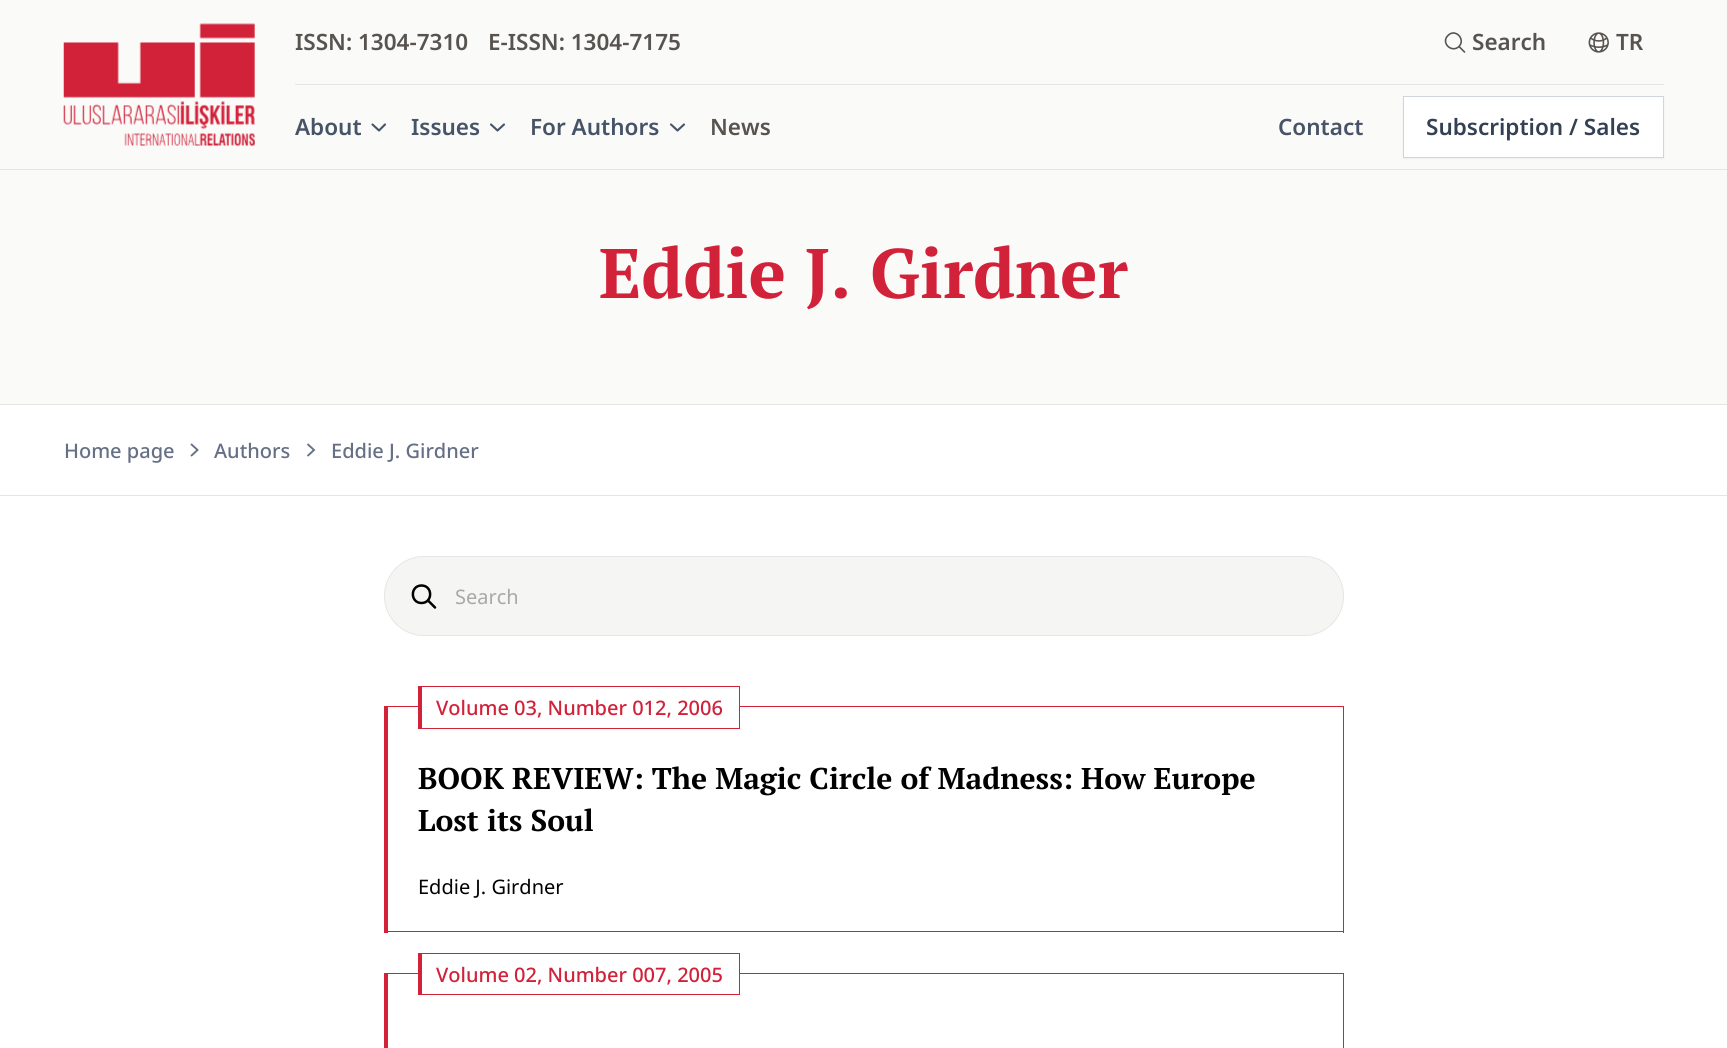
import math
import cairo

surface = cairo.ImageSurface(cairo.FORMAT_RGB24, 1727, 1048)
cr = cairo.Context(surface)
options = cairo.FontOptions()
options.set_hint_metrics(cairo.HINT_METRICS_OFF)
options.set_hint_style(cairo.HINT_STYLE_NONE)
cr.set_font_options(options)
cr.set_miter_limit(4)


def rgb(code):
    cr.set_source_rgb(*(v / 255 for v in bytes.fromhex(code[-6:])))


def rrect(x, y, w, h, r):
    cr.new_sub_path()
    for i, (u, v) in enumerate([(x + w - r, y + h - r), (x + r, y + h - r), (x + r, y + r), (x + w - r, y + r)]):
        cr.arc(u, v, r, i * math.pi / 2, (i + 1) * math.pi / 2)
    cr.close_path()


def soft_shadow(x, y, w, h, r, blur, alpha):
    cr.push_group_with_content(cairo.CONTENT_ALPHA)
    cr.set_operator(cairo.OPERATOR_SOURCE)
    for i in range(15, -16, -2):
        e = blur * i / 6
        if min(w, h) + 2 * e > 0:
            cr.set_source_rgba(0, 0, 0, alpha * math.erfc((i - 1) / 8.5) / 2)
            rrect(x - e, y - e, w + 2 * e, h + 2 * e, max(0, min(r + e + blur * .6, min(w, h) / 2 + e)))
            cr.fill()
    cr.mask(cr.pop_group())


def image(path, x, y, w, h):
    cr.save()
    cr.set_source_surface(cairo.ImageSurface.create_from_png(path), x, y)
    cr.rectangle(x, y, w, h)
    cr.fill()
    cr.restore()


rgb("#ffffff")
cr.paint()
rgb("#fafaf9")
cr.rectangle(0, 0, 1727, 169)
cr.fill()
rgb("#e7e5e4")
cr.rectangle(0, 169, 1727, 1)
cr.fill()
image("img/1.png", 63, 23, 192, 124)
cr.rectangle(295, 84, 1369, 1)
cr.fill()
cr.new_path()
cr.move_to(1464.5, 52)
cr.line_to(1459, 46.5)
cr.move_to(1459, 46.5)
cr.curve_to(1466, 39, 1455, 28, 1448, 35.5)
cr.curve_to(1440.5, 42.5, 1451.5, 53.5, 1459, 46.5)
cr.close_path()
rgb("#57534e")
cr.set_line_width(1.6)
cr.set_line_cap(cairo.LINE_CAP_ROUND)
cr.set_line_join(cairo.LINE_JOIN_ROUND)
cr.stroke()
image("img/2.png", 1588, 32, 21, 21)
cr.new_path()
cr.move_to(372.5, 124.5)
cr.line_to(379, 130.5)
cr.line_to(385, 124.5)
rgb("#475467")
cr.set_line_width(2.1)
cr.stroke()
cr.new_path()
cr.move_to(491, 124.5)
cr.line_to(497.5, 130.5)
cr.line_to(504, 124.5)
cr.stroke()
cr.new_path()
cr.move_to(671, 124.5)
cr.line_to(677.5, 130.5)
cr.line_to(684, 124.5)
cr.stroke()
rgb("#101828")
soft_shadow(1403, 98, 261, 61, 0, 1, 0.05)
rgb("#ffffff")
cr.rectangle(1403.5, 96.5, 260, 61)
cr.fill_preserve()
rgb("#d0d5dd")
cr.set_line_width(1)
cr.set_line_cap(cairo.LINE_CAP_BUTT)
cr.set_line_join(cairo.LINE_JOIN_MITER)
cr.stroke()
for x, y, w, h, color in [
    (0, 170, 1727, 234, "#fafaf9"),
    (0, 404, 1727, 1, "#e7e5e4"),
    (0, 495, 1727, 1, "#e7e5e4"),
]:
    rgb(color)
    cr.rectangle(x, y, w, h)
    cr.fill()
cr.new_path()
cr.move_to(191, 444)
cr.line_to(197.5, 450)
cr.line_to(191, 456)
rgb("#667085")
cr.set_line_width(1.9)
cr.stroke()
cr.new_path()
cr.move_to(307.5, 444)
cr.line_to(314, 450)
cr.line_to(307.5, 456)
cr.stroke()
rgb("#f5f5f4")
rrect(384.5, 556.5, 959, 79, 39.5)
cr.fill_preserve()
rgb("#e7e5e4")
cr.set_line_width(1)
cr.stroke()
cr.new_path()
cr.move_to(421.5, 603)
cr.curve_to(433, 603, 433, 585.5, 421.5, 585.5)
cr.curve_to(410, 585.5, 410, 603, 421.5, 603)
cr.close_path()
rgb("#000000")
cr.set_line_width(2.5)
cr.set_line_cap(cairo.LINE_CAP_SQUARE)
cr.set_line_join(cairo.LINE_JOIN_ROUND)
cr.stroke()
cr.new_path()
cr.move_to(428, 600.5)
cr.line_to(435, 607.5)
cr.set_line_cap(cairo.LINE_CAP_ROUND)
cr.stroke()
for x, y, w, h, color in [
    (384, 706, 960, 1, "#d1223a"),
    (1343, 706, 1, 227, "#d1223a"),
    (384, 931, 960, 1, "#d1223a"),
    (384, 706, 4, 227, "#d1223a"),
    (422, 706, 317, 1, "#ffffff"),
    (418, 686, 322, 1, "#d1223a"),
    (739, 686, 1, 43, "#d1223a"),
    (418, 728, 322, 1, "#d1223a"),
    (418, 686, 4, 43, "#d1223a"),
    (384, 973, 960, 1, "#d1223a"),
    (1343, 973, 1, 75, "#d1223a"),
    (384, 973, 4, 75, "#d1223a"),
    (422, 973, 317, 1, "#ffffff"),
    (418, 953, 322, 1, "#d1223a"),
    (739, 953, 1, 42, "#d1223a"),
    (418, 994, 322, 1, "#d1223a"),
    (418, 953, 4, 42, "#d1223a"),
]:
    rgb(color)
    cr.rectangle(x, y, w, h)
    cr.fill()
cr.select_font_face("Noto Sans SemiBold")
cr.set_font_size(22.5)
rgb("#57534e")
for x, y, s in [
    (295, 50, "ISSN: 1304-7310"),
    (488, 50, "E-ISSN: 1304-7175"),
    (1472, 50, "Search"),
    (1616, 50, "TR"),
]:
    cr.move_to(x, y)
    cr.show_text(s)
rgb("#475467")
for x, y, s in [
    (295, 135, "About"),
    (411, 135, "Issues"),
    (530, 135, "For Authors"),
]:
    cr.move_to(x, y)
    cr.show_text(s)
rgb("#57534e")
cr.move_to(710, 135)
cr.show_text("News")
rgb("#475467")
cr.move_to(1278, 135)
cr.show_text("Contact")
rgb("#344054")
cr.move_to(1426, 135)
cr.show_text("Subscription / Sales")
cr.select_font_face("PT Serif", cairo.FONT_SLANT_NORMAL, cairo.FONT_WEIGHT_BOLD)
cr.set_font_size(70)
rgb("#d1223a")
cr.move_to(599, 298)
cr.show_text("Eddie J. Girdner")
cr.select_font_face("Noto Sans Medium")
cr.set_font_size(20)
rgb("#667085")
for x, y, s in [
    (64, 458, "Home page"),
    (214, 458, "Authors"),
    (331, 458, "Eddie J. Girdner"),
]:
    cr.move_to(x, y)
    cr.show_text(s)
cr.select_font_face("Noto Sans")
rgb("#a8a8a8")
cr.move_to(455, 604)
cr.show_text("Search")
cr.select_font_face("Noto Sans Medium")
rgb("#d1223a")
cr.move_to(436, 715)
cr.show_text("Volume 03, Number 012, 2006")
cr.select_font_face("PT Serif", cairo.FONT_SLANT_NORMAL, cairo.FONT_WEIGHT_BOLD)
cr.set_font_size(30)
rgb("#000000")
cr.move_to(418, 789)
cr.show_text("BOOK REVIEW: The Magic Circle of Madness: How Europe")
cr.move_to(418, 831)
cr.show_text("Lost its Soul")
cr.select_font_face("Noto Sans")
cr.set_font_size(20)
cr.move_to(418, 894)
cr.show_text("Eddie J. Girdner")
cr.select_font_face("Noto Sans Medium")
rgb("#d1223a")
cr.move_to(436, 982)
cr.show_text("Volume 02, Number 007, 2005")
surface.write_to_png("page.png")
